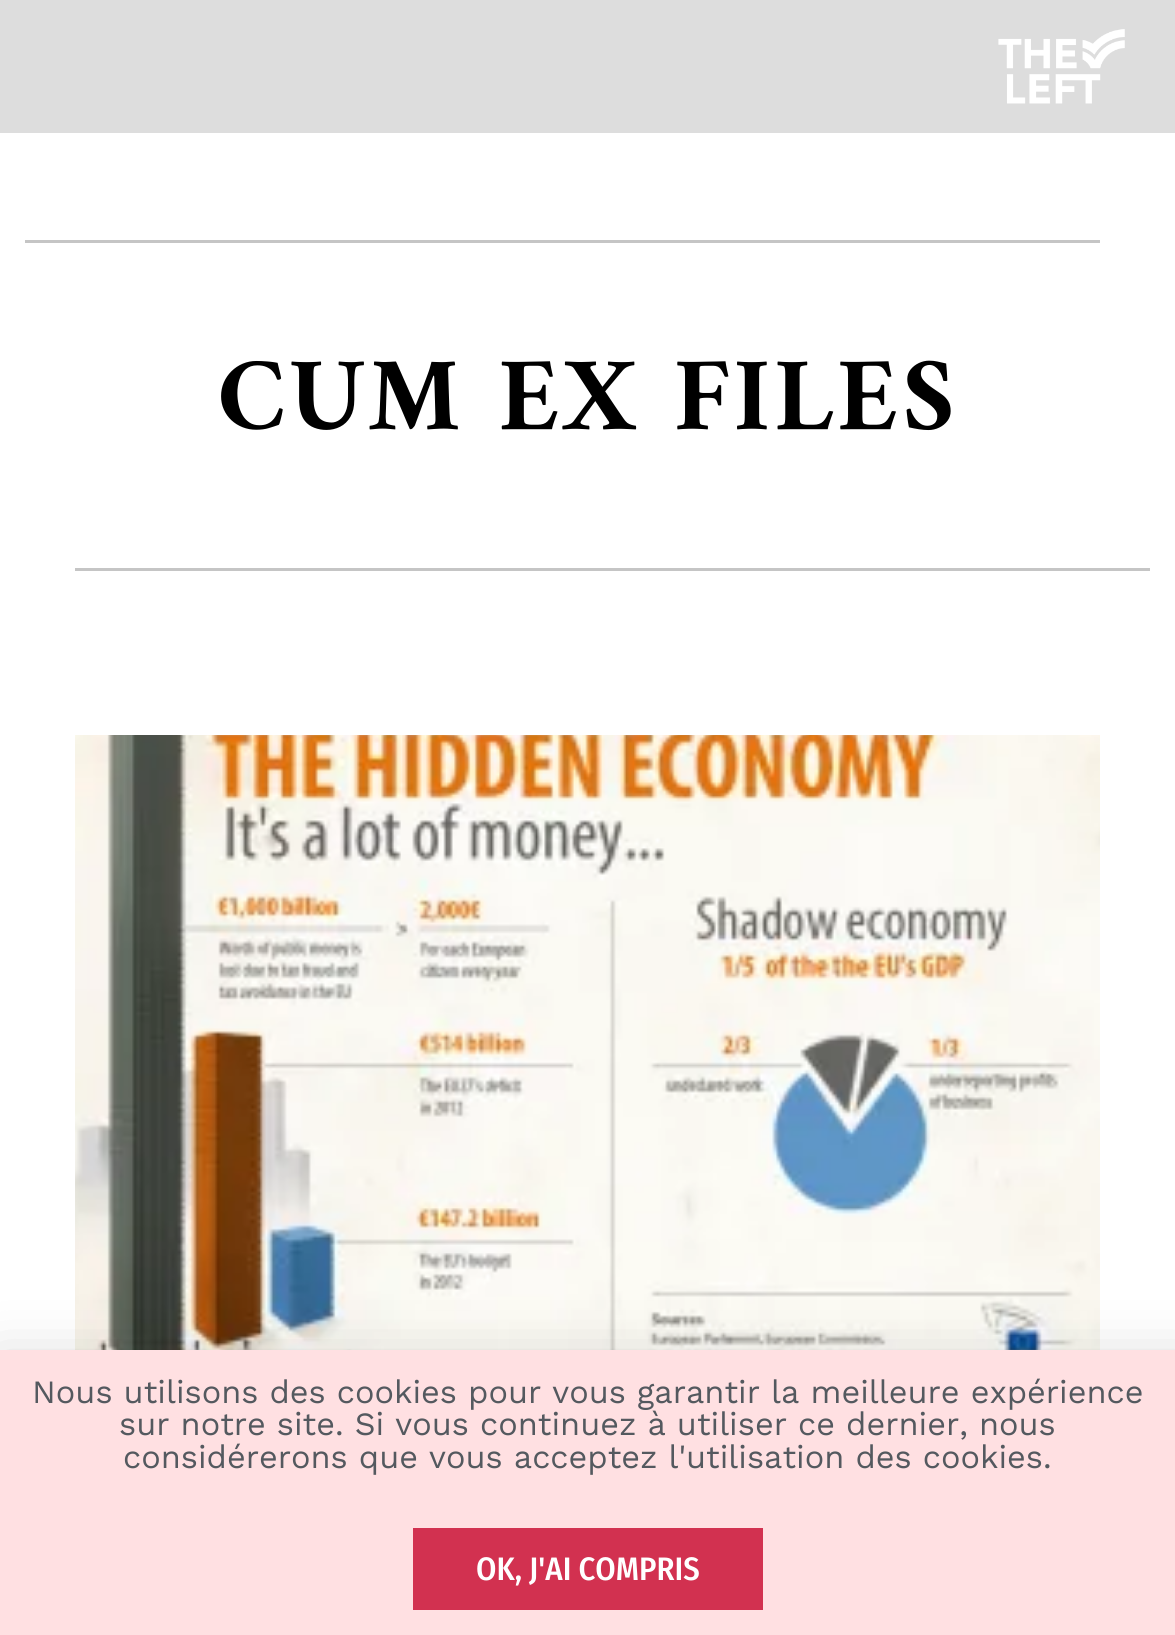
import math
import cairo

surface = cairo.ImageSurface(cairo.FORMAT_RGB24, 1175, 1635)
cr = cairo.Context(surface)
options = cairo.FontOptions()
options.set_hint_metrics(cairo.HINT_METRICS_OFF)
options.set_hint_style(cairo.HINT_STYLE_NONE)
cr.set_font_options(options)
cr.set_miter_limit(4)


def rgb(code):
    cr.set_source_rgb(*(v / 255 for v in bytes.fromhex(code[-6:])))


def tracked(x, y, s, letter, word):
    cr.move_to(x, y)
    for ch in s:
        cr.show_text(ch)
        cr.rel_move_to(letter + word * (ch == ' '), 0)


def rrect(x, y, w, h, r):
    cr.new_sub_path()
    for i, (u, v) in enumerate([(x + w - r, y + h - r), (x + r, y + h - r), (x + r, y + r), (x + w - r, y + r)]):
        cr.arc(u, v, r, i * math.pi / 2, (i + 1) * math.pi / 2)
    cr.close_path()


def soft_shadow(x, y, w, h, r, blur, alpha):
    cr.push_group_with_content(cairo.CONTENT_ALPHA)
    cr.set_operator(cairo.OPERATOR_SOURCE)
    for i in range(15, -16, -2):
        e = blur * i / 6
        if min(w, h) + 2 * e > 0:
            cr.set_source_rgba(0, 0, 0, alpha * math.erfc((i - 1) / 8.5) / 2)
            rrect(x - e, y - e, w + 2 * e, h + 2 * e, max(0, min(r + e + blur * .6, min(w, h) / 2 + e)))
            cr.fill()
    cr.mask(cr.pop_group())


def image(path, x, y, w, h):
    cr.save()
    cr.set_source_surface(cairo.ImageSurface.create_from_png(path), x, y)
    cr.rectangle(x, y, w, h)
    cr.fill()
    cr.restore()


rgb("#ffffff")
cr.paint()
rgb("#dddddd")
cr.rectangle(0, 0, 1175, 133)
cr.fill()
image("img/1.png", 998, 29, 127, 75)
rgb("#c5c5c5")
cr.rectangle(25, 240, 1075, 3)
cr.fill()
cr.rectangle(75, 568, 1075, 3)
cr.fill()
image("img/2.png", 75, 735, 1025, 615)
rgb("#000000")
soft_shadow(-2, 1363, 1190, 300, 0, 29, 0.2)
rgb("#ffe0e2")
cr.rectangle(0, 1350, 1175, 285)
cr.fill()
rgb("#d23150")
cr.rectangle(413, 1528, 350, 82)
cr.fill()
cr.select_font_face("Amiri", cairo.FONT_SLANT_NORMAL, cairo.FONT_WEIGHT_BOLD)
cr.set_font_size(104.5)
rgb("#000000")
tracked(217, 429, "CUM EX FILES", 3.75, 0)
cr.select_font_face("Work Sans")
cr.set_font_size(32.5)
rgb("#54595f")
for x, y, s in [
    (32, 1403, "Nous utilisons des cookies pour vous garantir la meilleure expérience"),
    (119, 1435, "sur notre site. Si vous continuez à utiliser ce dernier, nous"),
    (123, 1468, "considérerons que vous acceptez l'utilisation des cookies."),
]:
    cr.move_to(x, y)
    cr.show_text(s)
cr.select_font_face("Fira Sans Condensed Medium")
rgb("#ffffff")
cr.move_to(476, 1580)
cr.show_text("OK, J'AI COMPRIS")
surface.write_to_png("page.png")
